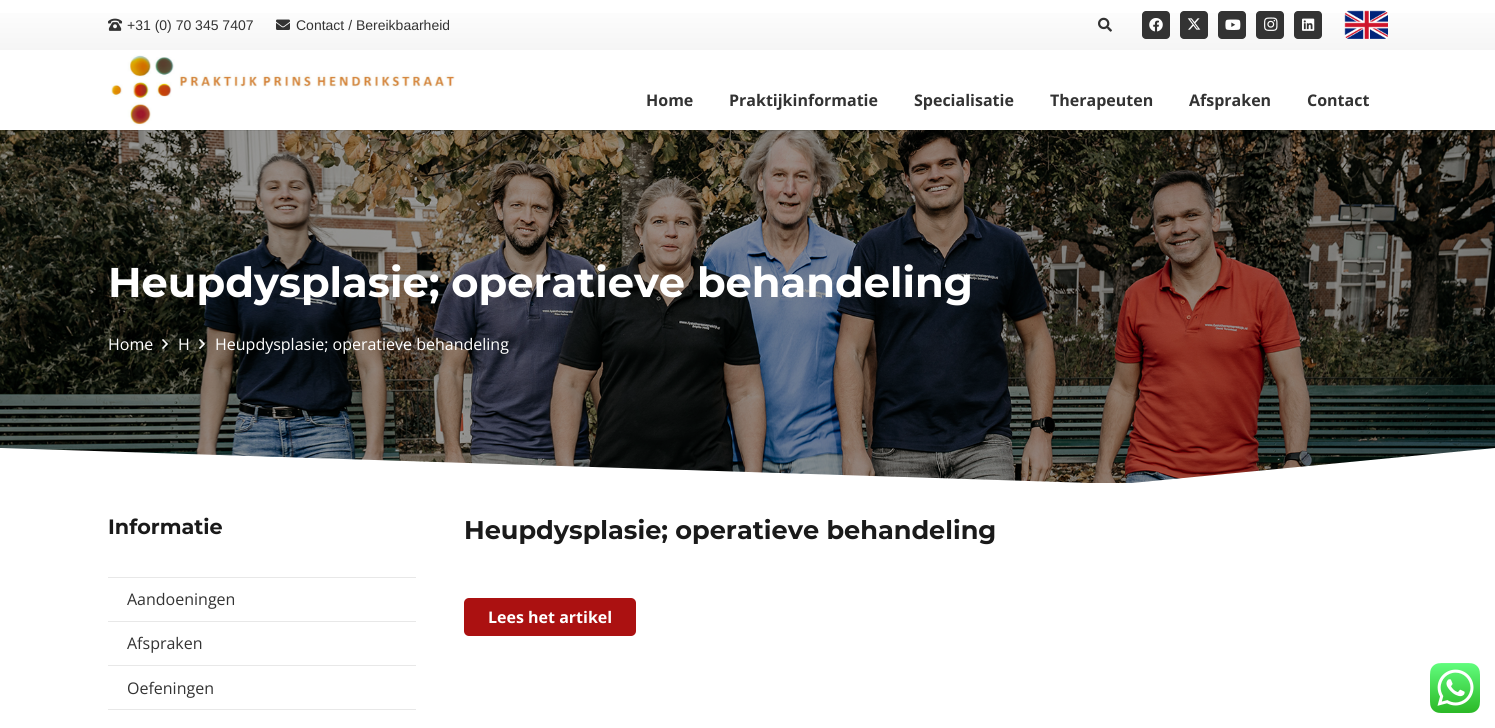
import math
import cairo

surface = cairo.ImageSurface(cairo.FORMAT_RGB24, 1495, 728)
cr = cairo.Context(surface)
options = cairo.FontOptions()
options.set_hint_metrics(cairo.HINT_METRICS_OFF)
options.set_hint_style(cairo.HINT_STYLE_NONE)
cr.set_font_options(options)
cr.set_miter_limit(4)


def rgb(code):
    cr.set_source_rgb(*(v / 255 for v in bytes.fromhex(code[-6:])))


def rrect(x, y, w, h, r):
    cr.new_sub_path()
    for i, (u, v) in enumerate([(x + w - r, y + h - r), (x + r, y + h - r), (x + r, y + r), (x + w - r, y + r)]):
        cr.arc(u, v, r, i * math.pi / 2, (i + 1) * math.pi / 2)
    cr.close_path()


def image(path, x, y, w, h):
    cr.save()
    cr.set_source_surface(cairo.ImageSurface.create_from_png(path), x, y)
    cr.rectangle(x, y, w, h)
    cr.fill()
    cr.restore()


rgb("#ffffff")
cr.paint()
gradient = cairo.LinearGradient(748, 50, 748, 0)
gradient.add_color_stop_rgba(0, 0.961, 0.961, 0.961, 1)
gradient.add_color_stop_rgba(1, 1, 1, 1, 1)
cr.set_source(gradient)
cr.rectangle(0, 13, 1495, 37)
cr.fill()
image("img/1.png", 108, 18, 15, 13)
image("img/2.png", 276, 19, 14, 11)
image("img/3.png", 1098, 17, 14, 15)
rgb("#333333")
rrect(1142, 11, 28, 28, 4)
cr.fill()
image("img/4.png", 1149, 18, 14, 14)
rrect(1180, 11, 28, 28, 4)
cr.fill()
image("img/5.png", 1187, 18, 14, 12)
rrect(1218, 11, 28, 28, 4)
cr.fill()
image("img/6.png", 1225, 19, 16, 11)
rrect(1256, 11, 28, 28, 4)
cr.fill()
image("img/7.png", 1264, 17, 14, 14)
rrect(1294, 11, 28, 28, 4)
cr.fill()
image("img/8.png", 1302, 18, 13, 13)
image("img/9.png", 1344, 10, 44, 29)
image("img/11.png", 0, 130, 1495, 353)
cr.set_source_rgba(0, 0, 0, 0.08)
cr.rectangle(0, 130, 1495, 1)
cr.fill()
image("img/10.png", 111, 55, 344, 71)
image("img/12.png", 162, 339, 6, 10)
image("img/13.png", 199, 339, 6, 10)
rgb("#ffffff")
cr.new_path()
cr.move_to(1495, 484)
cr.line_to(0, 484)
cr.line_to(0, 448)
cr.line_to(1121, 484)
cr.line_to(1495, 448)
cr.close_path()
cr.fill()
for x, y, w, h, color in [
    (108, 577, 308, 1, "#e8e8e8"),
    (108, 621, 308, 1, "#e8e8e8"),
    (108, 665, 308, 1, "#e8e8e8"),
    (108, 709, 308, 1, "#e8e8e8"),
]:
    rgb(color)
    cr.rectangle(x, y, w, h)
    cr.fill()
rgb("#ab1111")
rrect(464, 598, 172, 38, 5)
cr.fill()
image("img/14.png", 1430, 663, 50, 50)
cr.select_font_face("Liberation Sans")
cr.set_font_size(14)
rgb("#333333")
cr.move_to(127, 30)
cr.show_text("+31 (0) 70 345 7407")
cr.move_to(296, 30)
cr.show_text("Contact / Bereikbaarheid")
cr.select_font_face("Open Sans", cairo.FONT_SLANT_NORMAL, cairo.FONT_WEIGHT_BOLD)
cr.set_font_size(16)
for x, y, s in [
    (646, 106, "Home"),
    (729, 106, "Praktijkinformatie"),
    (914, 106, "Specialisatie"),
    (1050, 106, "Therapeuten"),
    (1189, 106, "Afspraken"),
    (1307, 106, "Contact"),
]:
    cr.move_to(x, y)
    cr.show_text(s)
cr.select_font_face("Montserrat Thin")
cr.set_font_size(41.6)
rgb("#ffffff")
cr.move_to(108, 297)
cr.show_text("Heupdysplasie; operatieve behandeling")
cr.select_font_face("Open Sans")
cr.set_font_size(16)
for x, y, s in [
    (108, 350, "Home"),
    (178, 350, "H"),
    (215, 350, "Heupdysplasie; operatieve behandeling"),
]:
    cr.move_to(x, y)
    cr.show_text(s)
cr.select_font_face("Montserrat Thin")
cr.set_font_size(20.75)
rgb("#1a1a1a")
cr.move_to(108, 534)
cr.show_text("Informatie")
cr.select_font_face("Open Sans")
cr.set_font_size(16)
rgb("#333333")
for x, y, s in [
    (127, 605, "Aandoeningen"),
    (127, 649, "Afspraken"),
    (127, 694, "Oefeningen"),
]:
    cr.move_to(x, y)
    cr.show_text(s)
cr.select_font_face("Montserrat Thin")
cr.set_font_size(25.6)
rgb("#1a1a1a")
cr.move_to(464, 539)
cr.show_text("Heupdysplasie; operatieve behandeling")
cr.select_font_face("Open Sans", cairo.FONT_SLANT_NORMAL, cairo.FONT_WEIGHT_BOLD)
cr.set_font_size(16)
rgb("#ffffff")
cr.move_to(488, 623)
cr.show_text("Lees het artikel")
surface.write_to_png("page.png")
